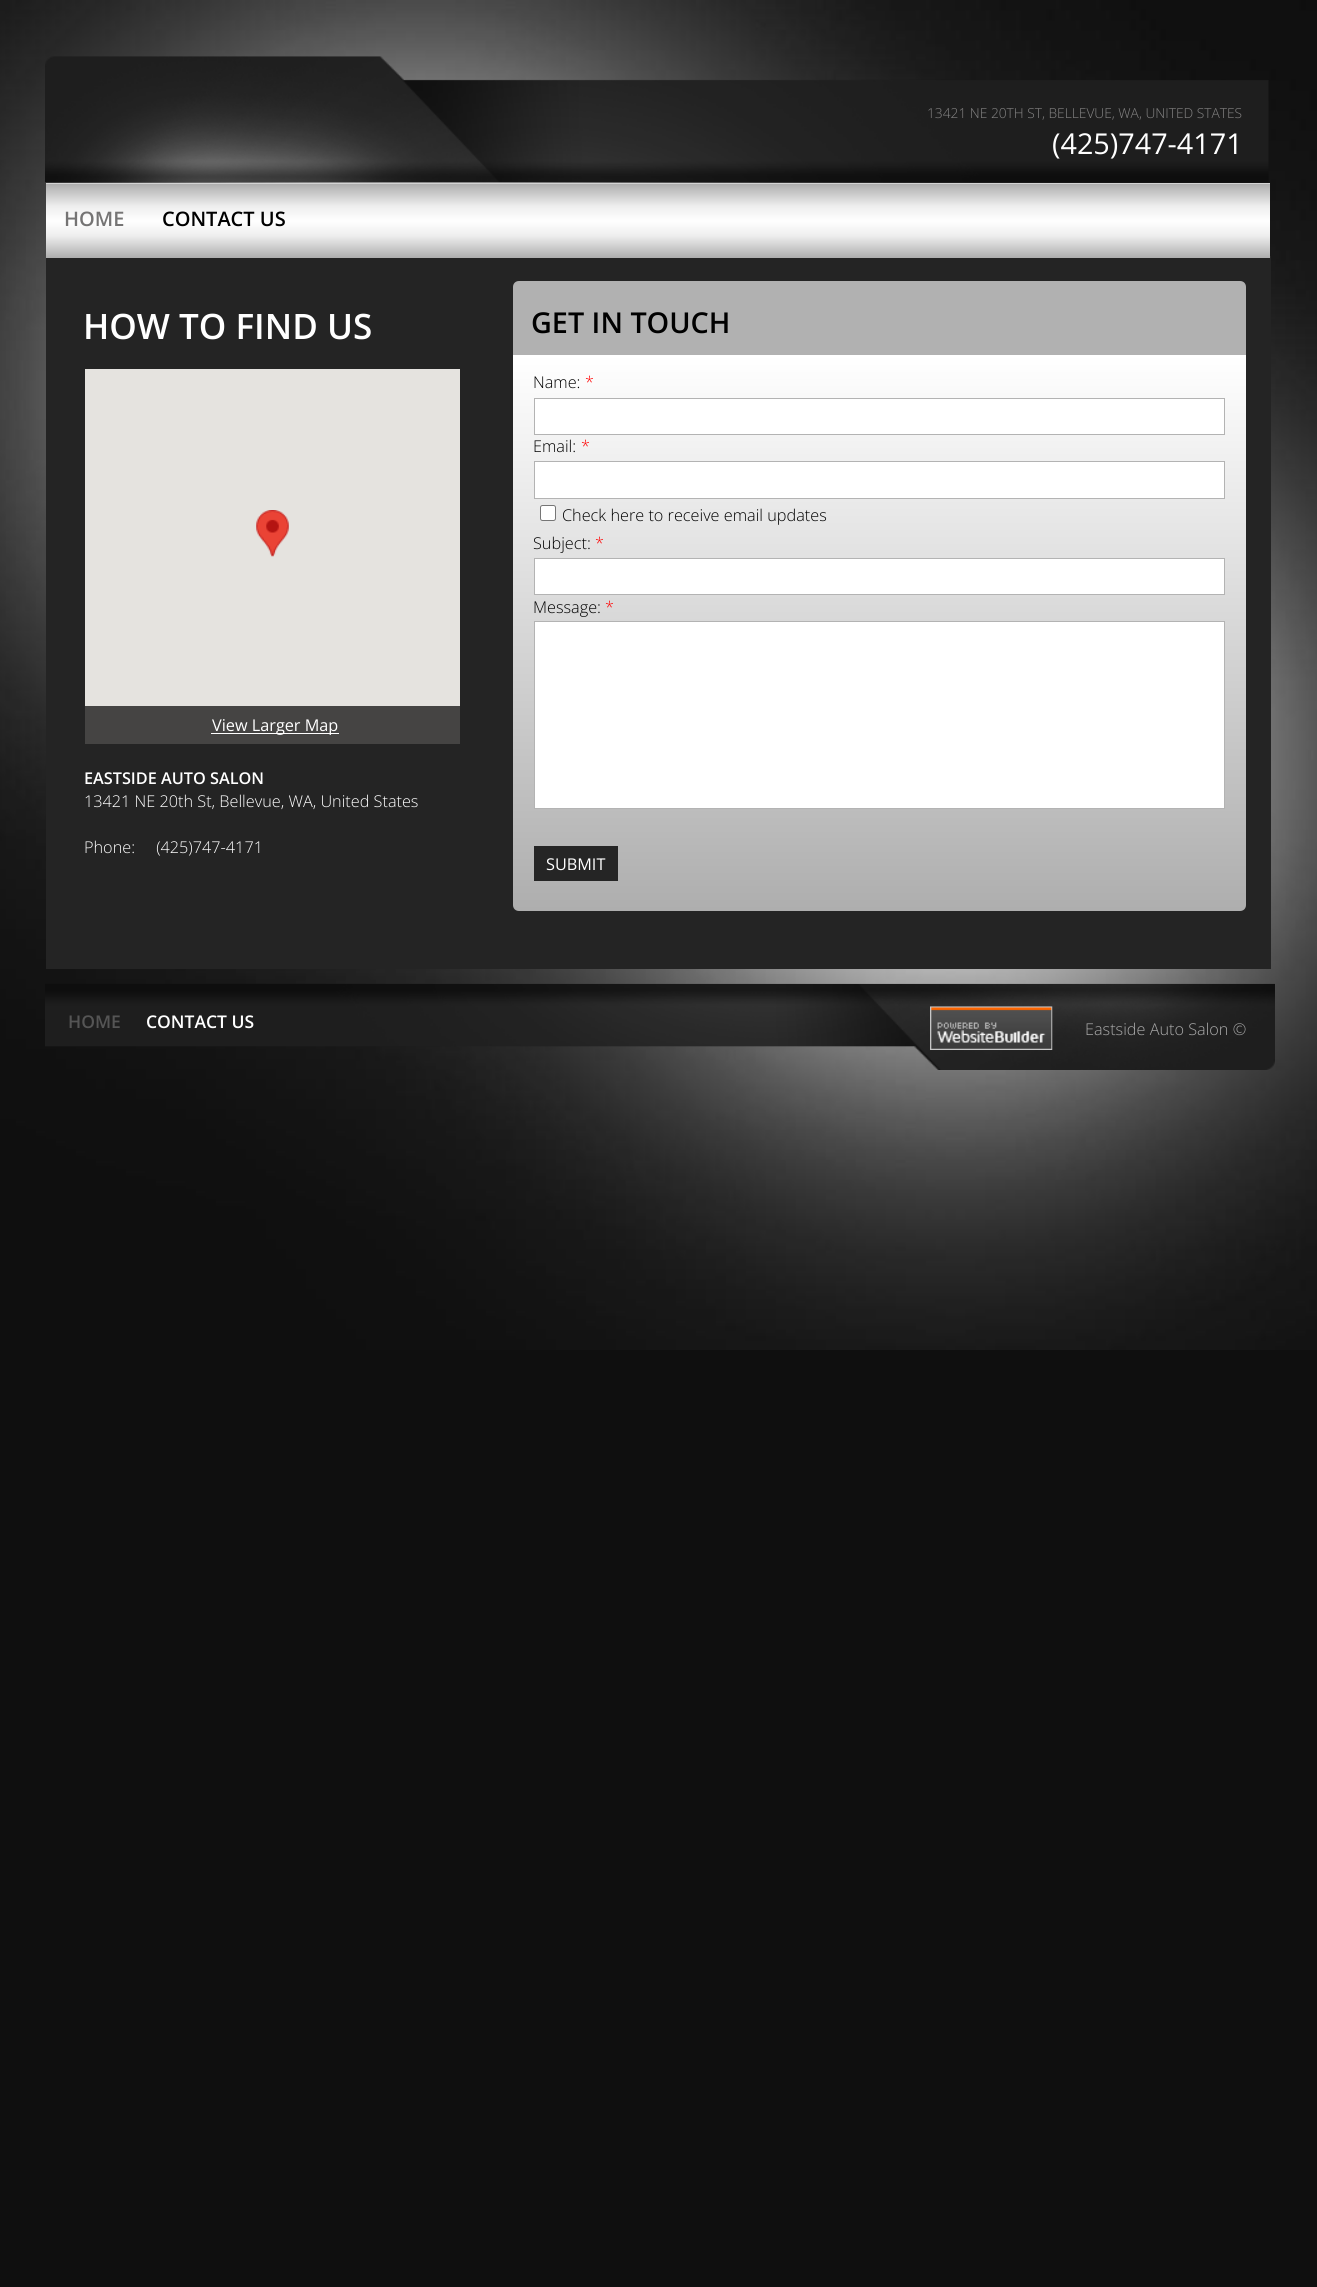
import math
import cairo

surface = cairo.ImageSurface(cairo.FORMAT_RGB24, 1317, 2287)
cr = cairo.Context(surface)
options = cairo.FontOptions()
options.set_hint_metrics(cairo.HINT_METRICS_OFF)
options.set_hint_style(cairo.HINT_STYLE_NONE)
cr.set_font_options(options)
cr.set_miter_limit(4)


def rgb(code):
    cr.set_source_rgb(*(v / 255 for v in bytes.fromhex(code[-6:])))


def rrect(x, y, w, h, r):
    cr.new_sub_path()
    for i, (u, v) in enumerate([(x + w - r, y + h - r), (x + r, y + h - r), (x + r, y + r), (x + w - r, y + r)]):
        cr.arc(u, v, r, i * math.pi / 2, (i + 1) * math.pi / 2)
    cr.close_path()


def image(path, x, y, w, h):
    cr.save()
    cr.set_source_surface(cairo.ImageSurface.create_from_png(path), x, y)
    cr.rectangle(x, y, w, h)
    cr.fill()
    cr.restore()


rgb("#0f0f0f")
cr.paint()
image("img/1.png", 0, 0, 1317, 1350)
rgb("#242424")
cr.rectangle(46, 256, 1225, 713)
cr.fill()
image("img/2.png", 45, 56, 1224, 127)
gradient = cairo.LinearGradient(658, 184, 658, 258)
gradient.add_color_stop_rgba(0, 0.682, 0.682, 0.682, 1)
gradient.add_color_stop_rgba(0.3, 0.933, 0.933, 0.933, 1)
gradient.add_color_stop_rgba(0.5, 1, 1, 1, 1)
gradient.add_color_stop_rgba(0.7, 0.933, 0.933, 0.933, 1)
gradient.add_color_stop_rgba(1, 0.682, 0.682, 0.682, 1)
cr.set_source(gradient)
cr.rectangle(46, 184, 1224, 74)
cr.fill()
rgb("#d4d4d4")
cr.rectangle(46, 183, 1224, 1)
cr.fill()
rgb("#b1b1b1")
cr.new_path()
cr.move_to(519, 281)
cr.line_to(1240, 281)
cr.curve_to(1243.5, 281, 1246, 283.5, 1246, 287)
cr.line_to(1246, 355)
cr.line_to(513, 355)
cr.line_to(513, 287)
cr.curve_to(513, 283.5, 515.5, 281, 519, 281)
cr.close_path()
cr.fill()
gradient = cairo.LinearGradient(879, 355, 879, 911)
gradient.add_color_stop_rgba(0, 1, 1, 1, 1)
gradient.add_color_stop_rgba(1, 0.682, 0.682, 0.682, 1)
cr.set_source(gradient)
cr.new_path()
cr.move_to(513, 355)
cr.line_to(1246, 355)
cr.line_to(1246, 905)
cr.curve_to(1246, 908.5, 1243.5, 911, 1240, 911)
cr.line_to(519, 911)
cr.curve_to(515.5, 911, 513, 908.5, 513, 905)
cr.close_path()
cr.fill()
rgb("#e5e3df")
cr.rectangle(85, 369, 375, 337)
cr.fill()
image("img/3.png", 256, 510, 33, 47)
rgb("#454443")
cr.rectangle(85, 706, 375, 38)
cr.fill()
rgb("#ffffff")
cr.rectangle(211, 733, 128, 1)
cr.fill()
cr.rectangle(534.5, 398.5, 690, 36)
cr.fill_preserve()
rgb("#b3b3b3")
cr.set_line_width(1)
cr.stroke()
rgb("#ffffff")
cr.rectangle(534.5, 461.5, 690, 37)
cr.fill_preserve()
rgb("#b3b3b3")
cr.stroke()
rgb("#ffffff")
rrect(540.5, 505.5, 15, 15, 2)
cr.fill_preserve()
rgb("#767676")
cr.stroke()
rgb("#ffffff")
cr.rectangle(534.5, 558.5, 690, 36)
cr.fill_preserve()
rgb("#b3b3b3")
cr.stroke()
rgb("#ffffff")
cr.rectangle(534.5, 621.5, 690, 187)
cr.fill_preserve()
rgb("#b3b3b3")
cr.stroke()
rgb("#252525")
cr.rectangle(534, 846, 84, 35)
cr.fill()
image("img/4.png", 45, 983, 1230, 87)
image("img/5.png", 930, 1006, 123, 44)
cr.select_font_face("Open Sans Light")
cr.set_font_size(13.75)
rgb("#868585")
cr.move_to(927, 118)
cr.show_text("13421 NE 20TH ST, BELLEVUE, WA, UNITED STATES")
cr.select_font_face("Open Sans")
cr.set_font_size(28.75)
rgb("#ffffff")
cr.move_to(1052, 154)
cr.show_text("(425)747-4171")
cr.select_font_face("Open Sans SemiBold")
cr.set_font_size(20)
rgb("#757474")
cr.move_to(64, 226)
cr.show_text("HOME")
rgb("#000000")
cr.move_to(162, 226)
cr.show_text("CONTACT US")
cr.set_font_size(35)
rgb("#ffffff")
cr.move_to(83, 339)
cr.show_text("HOW TO FIND US")
cr.set_font_size(28.75)
rgb("#000000")
cr.move_to(531, 333)
cr.show_text("GET IN TOUCH")
cr.select_font_face("Open Sans")
cr.set_font_size(16.25)
rgb("#ffffff")
cr.move_to(212, 731)
cr.show_text("View Larger Map")
cr.select_font_face("Open Sans Light")
rgb("#000000")
cr.move_to(533, 388)
cr.show_text("Name:")
rgb("#ff0000")
cr.move_to(585, 388)
cr.show_text("*")
rgb("#000000")
cr.move_to(533, 452)
cr.show_text("Email:")
rgb("#ff0000")
cr.move_to(581, 452)
cr.show_text("*")
rgb("#000000")
cr.move_to(562, 521)
cr.show_text("Check here to receive email updates")
cr.move_to(533, 549)
cr.show_text("Subject:")
rgb("#ff0000")
cr.move_to(595, 549)
cr.show_text("*")
rgb("#000000")
cr.move_to(533, 613)
cr.show_text("Message:")
rgb("#ff0000")
cr.move_to(605, 613)
cr.show_text("*")
cr.select_font_face("Open Sans")
rgb("#ffffff")
cr.move_to(546, 870)
cr.show_text("SUBMIT")
cr.select_font_face("Open Sans SemiBold")
cr.move_to(84, 784)
cr.show_text("EASTSIDE AUTO SALON")
cr.select_font_face("Open Sans Light")
cr.move_to(84, 807)
cr.show_text("13421 NE 20th St, Bellevue, WA, United States")
cr.move_to(84, 853)
cr.show_text("Phone:     (425)747-4171")
cr.select_font_face("Open Sans SemiBold")
cr.set_font_size(17.5)
rgb("#555555")
cr.move_to(68, 1028)
cr.show_text("HOME")
rgb("#ffffff")
cr.move_to(146, 1028)
cr.show_text("CONTACT US")
cr.select_font_face("Open Sans Light")
cr.set_font_size(16.25)
rgb("#a9a9a9")
cr.move_to(1085, 1035)
cr.show_text("Eastside Auto Salon ©")
surface.write_to_png("page.png")
